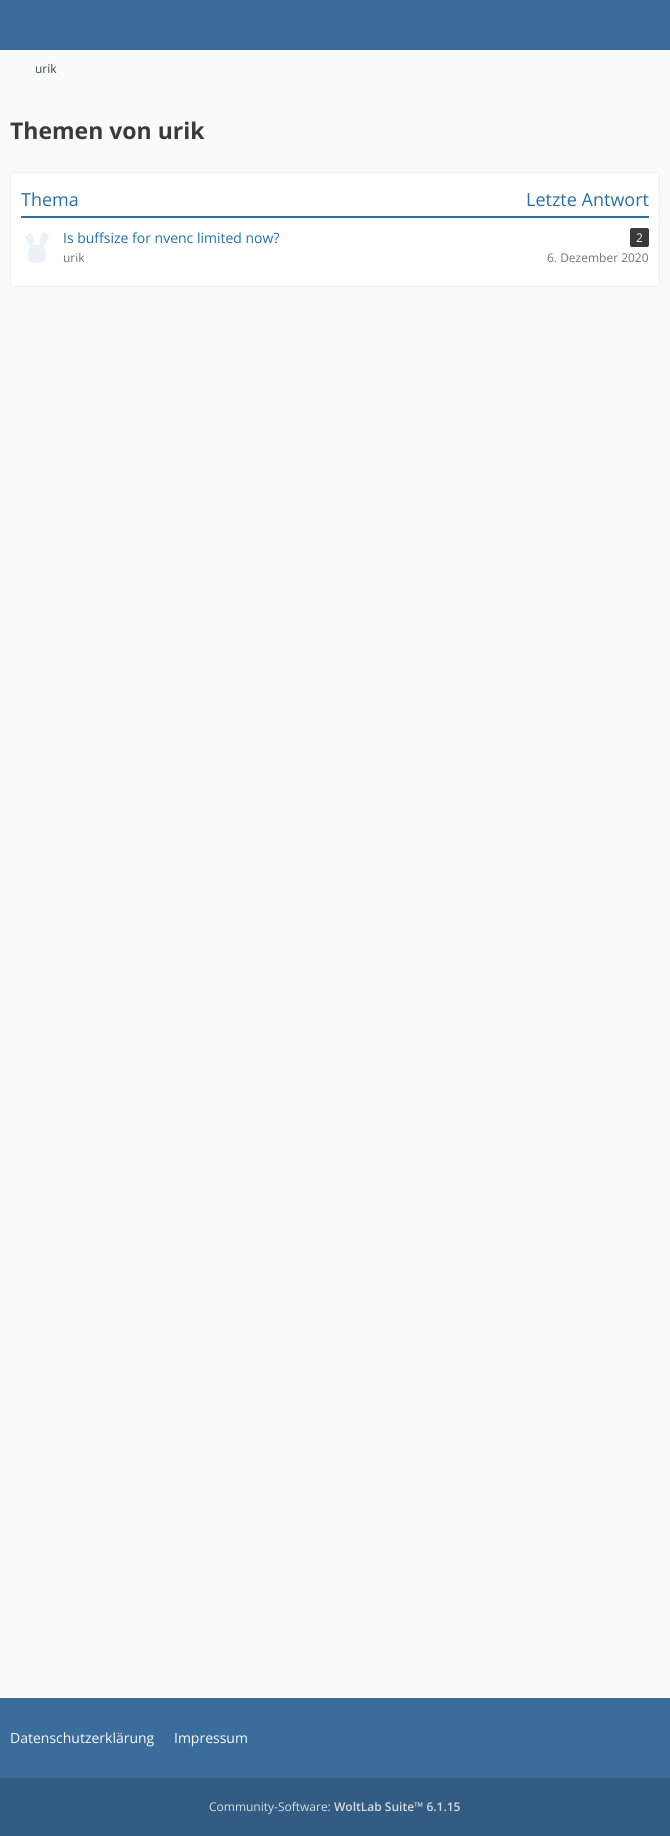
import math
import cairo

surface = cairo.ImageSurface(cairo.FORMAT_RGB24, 670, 1836)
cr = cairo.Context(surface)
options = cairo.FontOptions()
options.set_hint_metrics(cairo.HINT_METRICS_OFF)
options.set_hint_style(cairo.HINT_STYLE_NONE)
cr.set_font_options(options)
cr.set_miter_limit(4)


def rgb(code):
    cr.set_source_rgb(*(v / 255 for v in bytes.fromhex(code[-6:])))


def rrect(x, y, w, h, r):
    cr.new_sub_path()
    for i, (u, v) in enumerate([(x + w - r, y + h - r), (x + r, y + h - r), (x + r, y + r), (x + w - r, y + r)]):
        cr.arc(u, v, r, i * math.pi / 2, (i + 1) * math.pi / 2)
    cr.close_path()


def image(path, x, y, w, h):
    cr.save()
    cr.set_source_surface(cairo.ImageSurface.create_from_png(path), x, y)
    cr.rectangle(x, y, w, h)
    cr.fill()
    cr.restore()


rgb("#fafafa")
cr.paint()
rgb("#3a6d9c")
cr.rectangle(0, 0, 670, 50)
cr.fill()
rgb("#ffffff")
rrect(10.5, 172.5, 649, 114, 3.5)
cr.fill_preserve()
rgb("#ecf1f7")
cr.set_line_width(1)
cr.stroke()
rgb("#2671a6")
cr.rectangle(21, 216, 628, 2)
cr.fill()
image("img/1.png", 25, 232, 24, 31)
rgb("#3a3a3d")
rrect(630, 228, 19, 19, 2)
cr.fill()
rgb("#3a6d9c")
cr.rectangle(0, 1698, 670, 80)
cr.fill()
rgb("#325c84")
cr.rectangle(0, 1778, 670, 58)
cr.fill()
cr.select_font_face("Open Sans")
cr.set_font_size(12)
rgb("#34495e")
cr.move_to(35, 73)
cr.show_text("urik")
cr.select_font_face("Open Sans", cairo.FONT_SLANT_NORMAL, cairo.FONT_WEIGHT_BOLD)
cr.set_font_size(23)
rgb("#3a3a3d")
cr.move_to(10, 139)
cr.show_text("Themen von urik")
cr.select_font_face("Open Sans")
cr.set_font_size(18)
rgb("#2671a6")
cr.move_to(21, 206)
cr.show_text("Thema")
cr.move_to(526, 206)
cr.show_text("Letzte Antwort")
cr.set_font_size(14)
cr.move_to(63, 243)
cr.show_text("Is buffsize for nvenc limited now?")
cr.set_font_size(12)
rgb("#fafafa")
cr.move_to(636, 242)
cr.show_text("2")
rgb("#71757a")
cr.move_to(63, 262)
cr.show_text("urik")
cr.move_to(547, 262)
cr.show_text("6. Dezember 2020")
cr.set_font_size(14)
rgb("#fafafa")
cr.move_to(10, 1743)
cr.show_text("Datenschutzerklärung")
cr.move_to(174, 1743)
cr.show_text("Impressum")
cr.set_font_size(12)
rgb("#d9dcde")
cr.move_to(209, 1811)
cr.show_text("Community-Software:")
cr.select_font_face("Open Sans SemiBold")
cr.move_to(334, 1811)
cr.show_text("WoltLab Suite™ 6.1.15")
surface.write_to_png("page.png")
